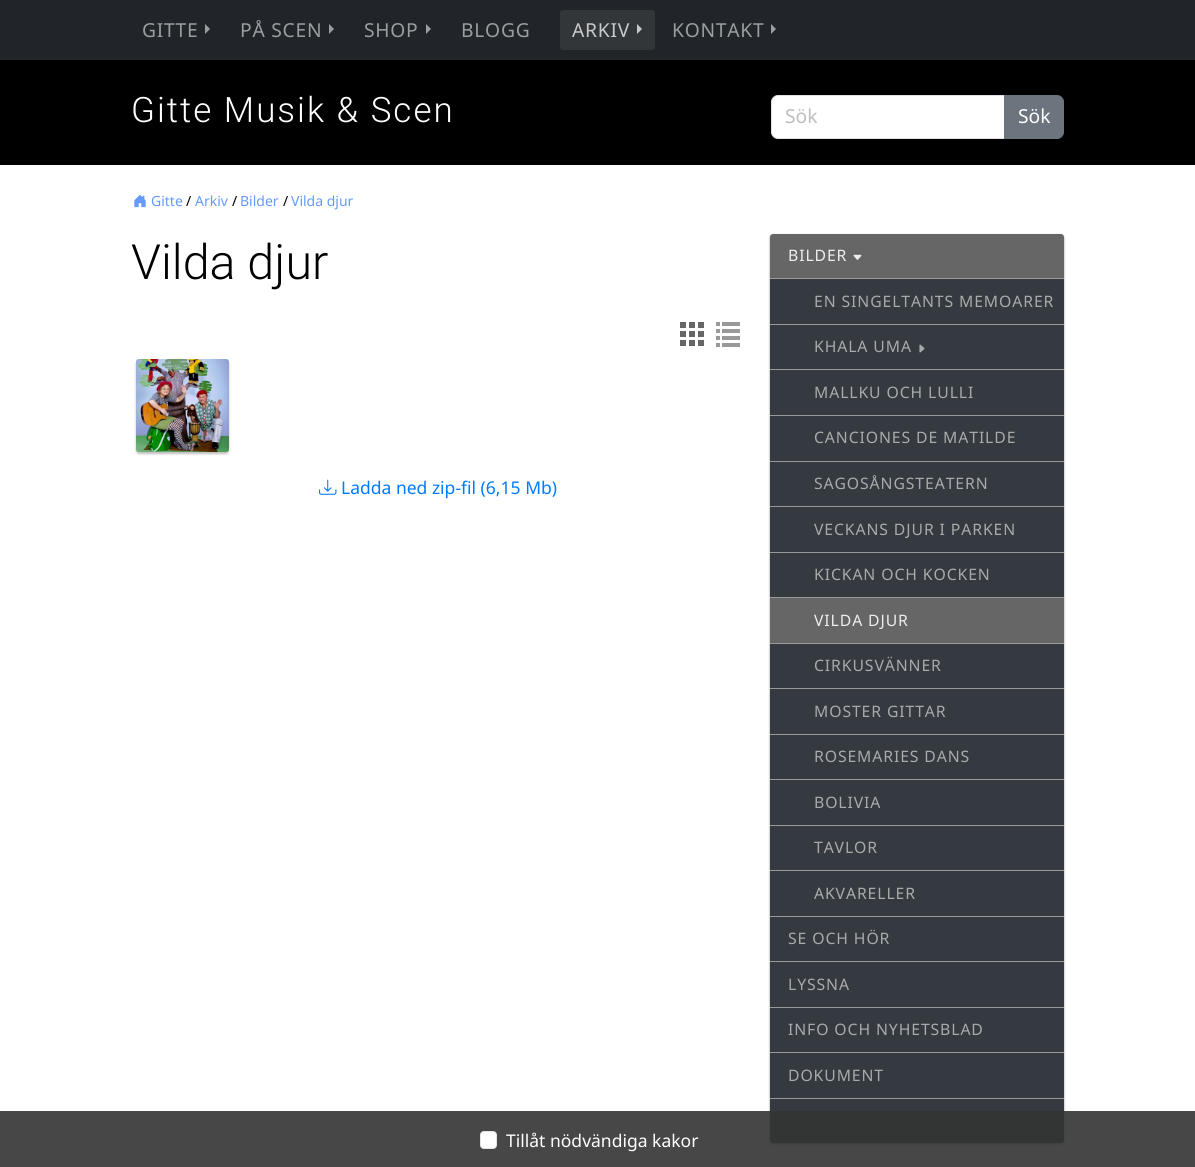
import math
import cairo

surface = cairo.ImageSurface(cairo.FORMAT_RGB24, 1195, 1167)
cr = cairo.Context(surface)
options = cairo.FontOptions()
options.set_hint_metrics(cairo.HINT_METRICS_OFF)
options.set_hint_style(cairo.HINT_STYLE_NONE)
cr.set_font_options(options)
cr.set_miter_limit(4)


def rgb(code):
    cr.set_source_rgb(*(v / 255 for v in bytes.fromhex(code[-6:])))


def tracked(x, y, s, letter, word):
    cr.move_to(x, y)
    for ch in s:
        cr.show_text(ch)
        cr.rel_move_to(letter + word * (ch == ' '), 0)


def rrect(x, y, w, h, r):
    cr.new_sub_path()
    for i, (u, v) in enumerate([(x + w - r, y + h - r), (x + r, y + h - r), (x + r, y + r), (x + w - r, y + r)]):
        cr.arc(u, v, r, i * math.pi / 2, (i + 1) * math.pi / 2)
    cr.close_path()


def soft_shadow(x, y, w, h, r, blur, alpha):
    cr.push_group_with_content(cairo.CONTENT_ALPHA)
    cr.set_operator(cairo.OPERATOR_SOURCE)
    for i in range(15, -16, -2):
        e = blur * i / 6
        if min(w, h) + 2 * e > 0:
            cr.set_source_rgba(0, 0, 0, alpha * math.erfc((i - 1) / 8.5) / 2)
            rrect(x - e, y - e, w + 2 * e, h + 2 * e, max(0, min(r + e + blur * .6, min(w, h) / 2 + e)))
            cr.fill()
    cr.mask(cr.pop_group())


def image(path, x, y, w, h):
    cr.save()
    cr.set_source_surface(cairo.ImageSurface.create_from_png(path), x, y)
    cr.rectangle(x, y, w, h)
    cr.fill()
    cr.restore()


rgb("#ffffff")
cr.paint()
rgb("#000000")
cr.rectangle(0, 60, 1195, 105)
cr.fill()
rgb("#212529")
cr.rectangle(0, 0, 1195, 60)
cr.fill()
rgb("#9b9d9f")
cr.new_path()
cr.move_to(205, 34)
cr.line_to(205, 24)
cr.line_to(210, 29)
cr.close_path()
cr.fill()
cr.new_path()
cr.move_to(329, 34)
cr.line_to(329, 24)
cr.line_to(334, 29)
cr.close_path()
cr.fill()
cr.new_path()
cr.move_to(426, 34)
cr.line_to(426, 24)
cr.line_to(431, 29)
cr.close_path()
cr.fill()
rgb("#333639")
rrect(560, 10, 95, 40, 3)
cr.fill()
rgb("#c8c9ca")
cr.new_path()
cr.move_to(637, 34)
cr.line_to(637, 24)
cr.line_to(642, 29)
cr.close_path()
cr.fill()
rgb("#9b9d9f")
cr.new_path()
cr.move_to(771, 34)
cr.line_to(771, 24)
cr.line_to(776, 29)
cr.close_path()
cr.fill()
rgb("#ffffff")
cr.new_path()
cr.move_to(778, 95.5)
cr.line_to(1004.5, 95.5)
cr.line_to(1004.5, 138.5)
cr.line_to(778, 138.5)
cr.curve_to(774.5, 138.5, 771.5, 135.5, 771.5, 132)
cr.line_to(771.5, 102)
cr.curve_to(771.5, 98.5, 774.5, 95.5, 778, 95.5)
cr.close_path()
cr.fill_preserve()
rgb("#dee2e6")
cr.set_line_width(1)
cr.stroke()
rgb("#6c757d")
cr.new_path()
cr.move_to(1004.5, 95.5)
cr.line_to(1057, 95.5)
cr.curve_to(1060.5, 95.5, 1063.5, 98.5, 1063.5, 102)
cr.line_to(1063.5, 132)
cr.curve_to(1063.5, 135.5, 1060.5, 138.5, 1057, 138.5)
cr.line_to(1004.5, 138.5)
cr.close_path()
cr.fill_preserve()
cr.stroke()
image("img/1.png", 134, 195, 12, 13)
image("img/2.png", 680, 322, 24, 24)
image("img/3.png", 716, 322, 24, 25)
rgb("#000000")
soft_shadow(136, 361, 93, 93, 3, 1, 0.25)
image("img/4.png", 136, 359, 93, 93)
image("img/5.png", 319, 479, 18, 16)
soft_shadow(770, 235, 294, 909, 3, 1, 0.4)
rgb("#666666")
cr.new_path()
cr.move_to(773, 234)
cr.line_to(1061, 234)
cr.curve_to(1062.5, 234, 1064, 235.5, 1064, 237)
cr.line_to(1064, 278)
cr.line_to(770, 278)
cr.line_to(770, 237)
cr.curve_to(770, 235.5, 771.5, 234, 773, 234)
cr.close_path()
cr.fill()
image("img/6.png", 853, 254, 9, 6)
for x, y, w, h, color in [
    (770, 278, 294, 1, "#999999"),
    (770, 279, 294, 45, "#343a40"),
    (770, 324, 294, 1, "#999999"),
    (770, 325, 294, 44, "#343a40"),
]:
    rgb(color)
    cr.rectangle(x, y, w, h)
    cr.fill()
image("img/7.png", 919, 344, 6, 9)
for x, y, w, h, color in [
    (770, 369, 294, 1, "#999999"),
    (770, 370, 294, 45, "#343a40"),
    (770, 415, 294, 1, "#999999"),
    (770, 416, 294, 45, "#343a40"),
    (770, 461, 294, 1, "#999999"),
    (770, 462, 294, 44, "#343a40"),
    (770, 506, 294, 1, "#999999"),
    (770, 507, 294, 45, "#343a40"),
    (770, 552, 294, 1, "#999999"),
    (770, 553, 294, 44, "#343a40"),
    (770, 597, 294, 1, "#999999"),
    (770, 598, 294, 45, "#666666"),
    (770, 643, 294, 1, "#999999"),
    (770, 644, 294, 44, "#343a40"),
    (770, 688, 294, 1, "#999999"),
    (770, 689, 294, 45, "#343a40"),
    (770, 734, 294, 1, "#999999"),
    (770, 735, 294, 44, "#343a40"),
    (770, 779, 294, 1, "#999999"),
    (770, 780, 294, 45, "#343a40"),
    (770, 825, 294, 1, "#999999"),
    (770, 826, 294, 44, "#343a40"),
    (770, 870, 294, 1, "#999999"),
    (770, 871, 294, 45, "#343a40"),
    (770, 916, 294, 1, "#999999"),
    (770, 917, 294, 44, "#343a40"),
    (770, 961, 294, 1, "#999999"),
    (770, 962, 294, 45, "#343a40"),
    (770, 1007, 294, 1, "#999999"),
    (770, 1008, 294, 44, "#343a40"),
    (770, 1052, 294, 1, "#999999"),
    (770, 1053, 294, 45, "#343a40"),
    (770, 1098, 294, 1, "#999999"),
]:
    rgb(color)
    cr.rectangle(x, y, w, h)
    cr.fill()
rgb("#343a40")
cr.new_path()
cr.move_to(770, 1099)
cr.line_to(1064, 1099)
cr.line_to(1064, 1140)
cr.curve_to(1064, 1141.5, 1062.5, 1143, 1061, 1143)
cr.line_to(773, 1143)
cr.curve_to(771.5, 1143, 770, 1141.5, 770, 1140)
cr.close_path()
cr.fill()
cr.set_source_rgba(0.2, 0.2, 0.2, 0.9)
cr.rectangle(0, 1111, 1195, 56)
cr.fill()
rgb("#ffffff")
rrect(480.5, 1131.5, 16, 17, 3.5)
cr.fill_preserve()
rgb("#e1e5e9")
cr.stroke()
cr.select_font_face("Noto Sans")
cr.set_font_size(19.25)
rgb("#9b9d9f")
for x, y, s in [
    (142, 37, "GITTE"),
    (240, 37, "PÅ SCEN"),
    (364, 37, "SHOP"),
    (461, 37, "BLOGG"),
]:
    tracked(x, y, s, 0.75, 0)
rgb("#c8c9ca")
tracked(572, 37, "ARKIV", 0.75, 0)
rgb("#9b9d9f")
tracked(672, 37, "KONTAKT", 0.75, 0)
cr.select_font_face("Roboto Light")
cr.set_font_size(35)
rgb("#ffffff")
tracked(131, 122, "Gitte Musik & Scen", 2, 0)
cr.select_font_face("Noto Sans")
cr.set_font_size(19.25)
rgb("#bcbebf")
cr.move_to(785, 123)
cr.show_text("Sök")
rgb("#ffffff")
cr.move_to(1018, 123)
cr.show_text("Sök")
cr.set_font_size(14)
rgb("#6699ff")
cr.move_to(151, 206)
cr.show_text("Gitte")
rgb("#000000")
cr.move_to(186, 206)
cr.show_text("/")
rgb("#6699ff")
cr.move_to(195, 206)
cr.show_text("Arkiv")
rgb("#000000")
cr.move_to(232, 206)
cr.show_text("/")
rgb("#6699ff")
cr.move_to(240, 206)
cr.show_text("Bilder")
rgb("#000000")
cr.move_to(283, 206)
cr.show_text("/")
rgb("#6699ff")
cr.move_to(291, 206)
cr.show_text("Vilda djur")
cr.select_font_face("Roboto Light")
cr.set_font_size(48.5)
rgb("#000000")
cr.move_to(131, 279)
cr.show_text("Vilda djur")
cr.select_font_face("Noto Sans")
cr.set_font_size(17.5)
rgb("#007bff")
cr.move_to(341, 494)
cr.show_text("Ladda ned zip-fil (6,15 Mb)")
cr.set_font_size(15.75)
rgb("#eeeeee")
tracked(788, 261, "BILDER", 0.9, 0)
rgb("#aaaaaa")
for x, y, s in [
    (814, 307, "EN SINGELTANTS MEMOARER"),
    (814, 352, "KHALA UMA"),
    (814, 398, "MALLKU OCH LULLI"),
    (814, 443, "CANCIONES DE MATILDE"),
    (814, 489, "SAGOSÅNGSTEATERN"),
    (814, 535, "VECKANS DJUR I PARKEN"),
    (814, 580, "KICKAN OCH KOCKEN"),
]:
    tracked(x, y, s, 0.9, 0)
rgb("#eeeeee")
tracked(814, 626, "VILDA DJUR", 0.9, 0)
rgb("#aaaaaa")
for x, y, s in [
    (814, 671, "CIRKUSVÄNNER"),
    (814, 717, "MOSTER GITTAR"),
    (814, 762, "ROSEMARIES DANS"),
    (814, 808, "BOLIVIA"),
    (814, 853, "TAVLOR"),
    (814, 899, "AKVARELLER"),
    (788, 944, "SE OCH HÖR"),
    (788, 990, "LYSSNA"),
    (788, 1035, "INFO OCH NYHETSBLAD"),
    (788, 1081, "DOKUMENT"),
]:
    tracked(x, y, s, 0.9, 0)
cr.set_font_size(17.5)
rgb("#ffffff")
cr.move_to(506, 1147)
cr.show_text("Tillåt nödvändiga kakor")
surface.write_to_png("page.png")
